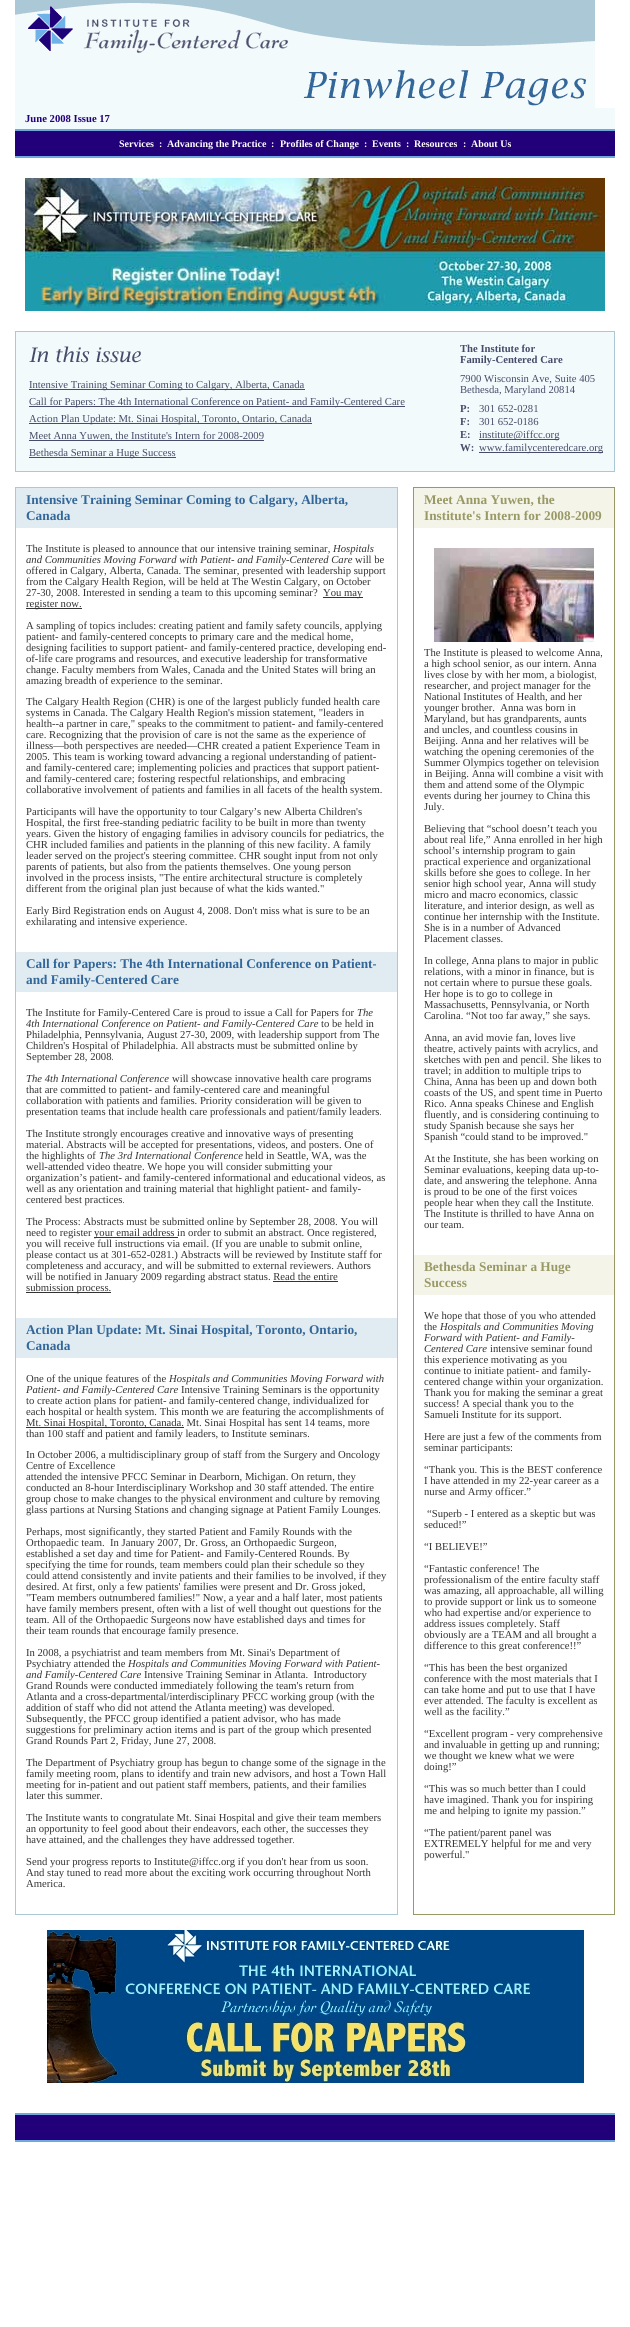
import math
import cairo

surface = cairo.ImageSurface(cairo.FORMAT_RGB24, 630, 2327)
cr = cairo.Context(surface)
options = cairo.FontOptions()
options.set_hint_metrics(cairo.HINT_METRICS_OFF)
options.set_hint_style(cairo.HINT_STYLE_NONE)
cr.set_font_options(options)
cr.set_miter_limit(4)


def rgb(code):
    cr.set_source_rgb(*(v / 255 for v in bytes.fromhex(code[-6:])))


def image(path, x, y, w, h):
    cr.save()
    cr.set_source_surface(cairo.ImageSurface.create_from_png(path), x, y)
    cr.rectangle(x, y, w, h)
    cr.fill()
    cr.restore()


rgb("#ffffff")
cr.paint()
image("img/1.png", 15, 0, 580, 108)
for x, y, w, h, color in [
    (15, 108, 600, 21, "#f3fafc"),
    (15, 129, 600, 2, "#6fa7df"),
    (15, 131, 600, 25, "#22007a"),
    (15, 156, 600, 2, "#6fa7df"),
]:
    rgb(color)
    cr.rectangle(x, y, w, h)
    cr.fill()
image("img/2.png", 25, 178, 580, 133)
rgb("#f3fafc")
cr.rectangle(15.5, 331.5, 599, 140)
cr.fill_preserve()
rgb("#aac8d5")
cr.set_line_width(1)
cr.stroke()
image("img/3.png", 29, 346, 112, 17)
for x, y, w, h, color in [
    (29, 389, 276, 1, "#464c69"),
    (29, 406, 376, 1, "#464c69"),
    (29, 423, 283, 1, "#464c69"),
    (29, 440, 235, 1, "#464c69"),
    (29, 457, 147, 1, "#464c69"),
    (479, 439, 80, 1, "#464c69"),
    (479, 452, 124, 1, "#464c69"),
]:
    rgb(color)
    cr.rectangle(x, y, w, h)
    cr.fill()
cr.rectangle(15.5, 487.5, 382, 1427)
rgb("#aac8d5")
cr.stroke()
for x, y, w, h, color in [
    (16, 488, 381, 40, "#e0ecf1"),
    (323, 597, 40, 1, "#333333"),
    (26, 608, 56, 1, "#333333"),
    (16, 952, 381, 40, "#e0ecf1"),
    (94, 1237, 84, 1, "#333333"),
    (273, 1281, 65, 1, "#333333"),
    (26, 1292, 85, 1, "#333333"),
    (16, 1318, 381, 40, "#e0ecf1"),
    (26, 1427, 158, 1, "#333333"),
]:
    rgb(color)
    cr.rectangle(x, y, w, h)
    cr.fill()
cr.rectangle(413.5, 487.5, 201, 1427)
rgb("#999966")
cr.stroke()
rgb("#f4f4e9")
cr.rectangle(414, 488, 200, 40)
cr.fill()
image("img/4.png", 434, 548, 160, 94)
cr.rectangle(414, 1255, 200, 40)
cr.fill()
image("img/5.png", 47, 1930, 537, 153)
for x, y, w, h, color in [
    (15, 2113, 600, 2, "#6fa7df"),
    (15, 2115, 600, 25, "#22007a"),
    (15, 2140, 600, 2, "#6fa7df"),
]:
    rgb(color)
    cr.rectangle(x, y, w, h)
    cr.fill()
cr.select_font_face("Liberation Serif", cairo.FONT_SLANT_NORMAL, cairo.FONT_WEIGHT_BOLD)
cr.set_font_size(10.65)
rgb("#22007a")
cr.move_to(25, 122)
cr.show_text("June 2008 Issue 17")
cr.set_font_size(10)
rgb("#ffffff")
for x, y, s in [
    (119, 147, "Services"),
    (159, 147, ":"),
    (167, 147, "Advancing the Practice"),
    (271, 147, ":"),
    (280, 147, "Profiles of Change"),
    (364, 147, ":"),
    (372, 147, "Events"),
    (406, 147, ":"),
    (414, 147, "Resources"),
    (463, 147, ":"),
    (471, 147, "About Us"),
]:
    cr.move_to(x, y)
    cr.show_text(s)
cr.select_font_face("Liberation Serif")
cr.set_font_size(10.65)
rgb("#464c69")
for x, y, s in [
    (29, 388, "Intensive Training Seminar Coming to Calgary, Alberta, Canada"),
    (29, 405, "Call for Papers: The 4th International Conference on Patient- and Family-Centered Care"),
    (29, 422, "Action Plan Update: Mt. Sinai Hospital, Toronto, Ontario, Canada"),
    (29, 439, "Meet Anna Yuwen, the Institute's Intern for 2008-2009"),
    (29, 456, "Bethesda Seminar a Huge Success"),
]:
    cr.move_to(x, y)
    cr.show_text(s)
cr.select_font_face("Liberation Serif", cairo.FONT_SLANT_NORMAL, cairo.FONT_WEIGHT_BOLD)
cr.move_to(460, 352)
cr.show_text("The Institute for")
cr.move_to(460, 363)
cr.show_text("Family-Centered Care")
cr.select_font_face("Liberation Serif")
cr.move_to(460, 382)
cr.show_text("7900 Wisconsin Ave, Suite 405")
cr.move_to(460, 393)
cr.show_text("Bethesda, Maryland 20814")
cr.select_font_face("Liberation Serif", cairo.FONT_SLANT_NORMAL, cairo.FONT_WEIGHT_BOLD)
cr.move_to(460, 412)
cr.show_text("P:")
cr.select_font_face("Liberation Serif")
cr.move_to(479, 412)
cr.show_text("301 652-0281")
cr.select_font_face("Liberation Serif", cairo.FONT_SLANT_NORMAL, cairo.FONT_WEIGHT_BOLD)
cr.move_to(460, 425)
cr.show_text("F:")
cr.select_font_face("Liberation Serif")
cr.move_to(479, 425)
cr.show_text("301 652-0186")
cr.select_font_face("Liberation Serif", cairo.FONT_SLANT_NORMAL, cairo.FONT_WEIGHT_BOLD)
cr.move_to(460, 438)
cr.show_text("E:")
cr.select_font_face("Liberation Serif")
cr.move_to(479, 438)
cr.show_text("institute@iffcc.org")
cr.select_font_face("Liberation Serif", cairo.FONT_SLANT_NORMAL, cairo.FONT_WEIGHT_BOLD)
cr.move_to(460, 451)
cr.show_text("W:")
cr.select_font_face("Liberation Serif")
cr.move_to(479, 451)
cr.show_text("www.familycenteredcare.org")
cr.select_font_face("Liberation Serif", cairo.FONT_SLANT_NORMAL, cairo.FONT_WEIGHT_BOLD)
cr.set_font_size(13.3)
rgb("#336699")
cr.move_to(26, 504)
cr.show_text("Intensive Training Seminar Coming to Calgary, Alberta,")
cr.move_to(26, 520)
cr.show_text("Canada")
cr.select_font_face("Liberation Serif")
cr.set_font_size(10.65)
rgb("#333333")
cr.move_to(26, 552)
cr.show_text("The Institute is pleased to announce that our intensive training seminar,")
cr.select_font_face("Liberation Serif", cairo.FONT_SLANT_ITALIC)
cr.move_to(333, 552)
cr.show_text("Hospitals")
cr.move_to(26, 563)
cr.show_text("and Communities Moving Forward with Patient- and Family-Centered Care")
cr.select_font_face("Liberation Serif")
for x, y, s in [
    (355, 563, "will be"),
    (26, 574, "offered in Calgary, Alberta, Canada. The seminar, presented with leadership support"),
    (26, 585, "from the Calgary Health Region, will be held at The Westin Calgary,"),
    (323, 585, "on October"),
    (26, 596, "27-30, 2008. Interested in sending a team to this upcoming seminar?"),
    (323, 596, "You may"),
    (26, 607, "register now."),
    (26, 629, "A sampling of topics includes: creating patient and family safety councils, applying"),
    (26, 640, "patient- and family-centered concepts to primary care and the medical home,"),
    (26, 651, "designing facilities to support patient- and family-centered practice, developing end-"),
    (26, 662, "of-life care programs and resources, and executive leadership for transformative"),
    (26, 673, "change. Faculty members from Wales, Canada and the United States will bring an"),
    (26, 684, "amazing breadth of experience to the seminar."),
    (26, 705, "The Calgary Health Region (CHR) is one of the largest publicly funded health care"),
    (26, 716, "systems in Canada. The Calgary Health Region's mission statement, \"leaders in"),
    (26, 727, "health--a partner in care,\" speaks to the commitment to patient- and family-centered"),
    (26, 738, "care. Recognizing that the provision of care is not the same as the experience of"),
    (26, 749, "illness—both perspectives are needed—CHR created a patient Experience Team in"),
    (26, 760, "2005. This team is working toward advancing a regional understanding of patient-"),
    (26, 771, "and family-centered care; implementing policies and practices that support patient-"),
    (26, 782, "and family-centered care; fostering respectful relationships, and embracing"),
    (26, 793, "collaborative involvement of patients and families in all facets of the health system."),
    (26, 815, "Participants will have the opportunity to tour Calgary’s new Alberta Children's"),
    (26, 826, "Hospital, the first free-standing pediatric facility to be built in more than twenty"),
    (26, 837, "years. Given the history of engaging families in advisory councils for pediatrics, the"),
    (26, 848, "CHR included families and patients in the planning of this new facility. A family"),
    (26, 859, "leader served on the project's steering committee. CHR sought input from not only"),
    (26, 870, "parents of patients, but also from the patients themselves. One young person"),
    (26, 881, "involved in the process insists, \"The entire architectural structure is completely"),
    (26, 892, "different from the original plan just because of what the kids wanted.\""),
    (26, 914, "Early Bird Registration ends on August 4, 2008. Don't miss what is sure to be an"),
    (26, 925, "exhilarating and intensive experience."),
]:
    cr.move_to(x, y)
    cr.show_text(s)
cr.select_font_face("Liberation Serif", cairo.FONT_SLANT_NORMAL, cairo.FONT_WEIGHT_BOLD)
cr.set_font_size(13.3)
rgb("#336699")
cr.move_to(26, 968)
cr.show_text("Call for Papers: The 4th International Conference on Patient-")
cr.move_to(26, 984)
cr.show_text("and Family-Centered Care")
cr.select_font_face("Liberation Serif")
cr.set_font_size(10.65)
rgb("#333333")
cr.move_to(26, 1016)
cr.show_text("The Institute for Family-Centered Care is proud to issue a Call for Papers for")
cr.select_font_face("Liberation Serif", cairo.FONT_SLANT_ITALIC)
cr.move_to(357, 1016)
cr.show_text("The")
cr.move_to(26, 1027)
cr.show_text("4th International Conference on Patient- and Family-Centered Care")
cr.select_font_face("Liberation Serif")
for x, y, s in [
    (321, 1027, "to be held in"),
    (26, 1038, "Philadelphia, Pennsylvania, August 27-30, 2009, with leadership support from The"),
    (26, 1049, "Children's Hospital of Philadelphia. All abstracts must be submitted online by"),
    (26, 1060, "September 28, 2008."),
]:
    cr.move_to(x, y)
    cr.show_text(s)
cr.select_font_face("Liberation Serif", cairo.FONT_SLANT_ITALIC)
cr.move_to(26, 1082)
cr.show_text("The 4th International Conference")
cr.select_font_face("Liberation Serif")
for x, y, s in [
    (172, 1082, "will showcase innovative health care programs"),
    (26, 1093, "that are committed to patient- and family-centered care and meaningful"),
    (26, 1104, "collaboration with patients and families. Priority consideration will be given to"),
    (26, 1115, "presentation teams that include health care professionals and patient/family leaders."),
    (26, 1137, "The Institute strongly encourages creative and innovative ways of presenting"),
    (26, 1148, "material. Abstracts will be accepted for presentations, videos, and posters. One of"),
    (26, 1159, "the highlights of"),
]:
    cr.move_to(x, y)
    cr.show_text(s)
cr.select_font_face("Liberation Serif", cairo.FONT_SLANT_ITALIC)
cr.move_to(99, 1159)
cr.show_text("The 3rd International Conference")
cr.select_font_face("Liberation Serif")
for x, y, s in [
    (245, 1159, "held in Seattle, WA, was the"),
    (26, 1170, "well-attended video theatre. We hope you will consider submitting your"),
    (26, 1181, "organization’s patient- and family-centered informational and educational videos, as"),
    (26, 1192, "well as any orientation and training material that highlight patient- and family-"),
    (26, 1203, "centered best practices."),
    (26, 1225, "The Process: Abstracts must be submitted online by September 28, 2008. You will"),
    (26, 1236, "need to register"),
    (94, 1236, "your email address in order to submit an abstract. Once registered,"),
    (26, 1247, "you will receive full instructions via email. (If you are unable to submit online,"),
    (26, 1258, "please contact us at 301-652-0281.) Abstracts will be reviewed by Institute staff for"),
    (26, 1269, "completeness and accuracy, and will be submitted to external reviewers. Authors"),
    (26, 1280, "will be notified in January 2009 regarding abstract status. Read the entire"),
    (26, 1291, "submission process."),
]:
    cr.move_to(x, y)
    cr.show_text(s)
cr.select_font_face("Liberation Serif", cairo.FONT_SLANT_NORMAL, cairo.FONT_WEIGHT_BOLD)
cr.set_font_size(13.3)
rgb("#336699")
cr.move_to(26, 1334)
cr.show_text("Action Plan Update: Mt. Sinai Hospital, Toronto, Ontario,")
cr.move_to(26, 1350)
cr.show_text("Canada")
cr.select_font_face("Liberation Serif")
cr.set_font_size(10.65)
rgb("#333333")
cr.move_to(26, 1382)
cr.show_text("One of the unique features of the")
cr.select_font_face("Liberation Serif", cairo.FONT_SLANT_ITALIC)
cr.move_to(169, 1382)
cr.show_text("Hospitals and Communities Moving Forward with")
cr.move_to(26, 1393)
cr.show_text("Patient- and Family-Centered Care")
cr.select_font_face("Liberation Serif")
for x, y, s in [
    (181, 1393, "Intensive Training Seminars is the opportunity"),
    (26, 1404, "to create action plans for patient- and family-centered change, individualized for"),
    (26, 1415, "each hospital or health system. This month we are featuring the accomplishments of"),
    (26, 1426, "Mt. Sinai Hospital, Toronto, Canada. Mt. Sinai Hospital has sent 14 teams, more"),
    (26, 1437, "than 100 staff and patient and family leaders, to Institute seminars."),
    (26, 1458, "In October 2006, a multidisciplinary group of staff from the Surgery and Oncology"),
    (26, 1469, "Centre of Excellence"),
    (26, 1480, "attended the intensive PFCC Seminar in Dearborn, Michigan. On return, they"),
    (26, 1491, "conducted an 8-hour Interdisciplinary Workshop and 30 staff attended. The entire"),
    (26, 1502, "group chose to make changes to the physical environment and culture by removing"),
    (26, 1513, "glass partions at Nursing Stations and changing signage at Patient Family Lounges."),
    (26, 1535, "Perhaps, most significantly, they started Patient and Family Rounds with the"),
    (26, 1546, "Orthopaedic team.  In January 2007, Dr. Gross, an Orthopaedic Surgeon,"),
    (26, 1557, "established a set day and time for Patient- and Family-Centered Rounds. By"),
    (26, 1568, "specifying the time for rounds, team members could plan their schedule so they"),
    (26, 1579, "could attend consistently and invite patients and their families to be involved, if they"),
    (26, 1590, "desired. At first, only a few patients' families were present and Dr. Gross joked,"),
    (26, 1601, "\"Team members outnumbered families!\" Now, a year and a half later, most patients"),
    (26, 1612, "have family members present, often with a list of well thought out questions for the"),
    (26, 1623, "team. All of the Orthopaedic Surgeons now have established days and times for"),
    (26, 1634, "their team rounds that encourage family presence."),
    (26, 1656, "In 2008, a psychiatrist and team members from Mt. Sinai's Department of"),
    (26, 1667, "Psychiatry attended the"),
]:
    cr.move_to(x, y)
    cr.show_text(s)
cr.select_font_face("Liberation Serif", cairo.FONT_SLANT_ITALIC)
cr.move_to(128, 1667)
cr.show_text("Hospitals and Communities Moving Forward with Patient-")
cr.move_to(26, 1678)
cr.show_text("and Family-Centered Care")
cr.select_font_face("Liberation Serif")
for x, y, s in [
    (144, 1678, "Intensive Training Seminar in Atlanta.  Introductory"),
    (26, 1689, "Grand Rounds were conducted immediately following the team's return from"),
    (26, 1700, "Atlanta and a cross-departmental/interdisciplinary PFCC working group (with the"),
    (26, 1711, "addition of staff who did not attend the Atlanta meeting) was developed."),
    (26, 1722, "Subsequently, the PFCC group identified a patient advisor, who has made"),
    (26, 1733, "suggestions for preliminary action items and is part of the group which presented"),
    (26, 1744, "Grand Rounds Part 2, Friday, June 27, 2008."),
    (26, 1766, "The Department of Psychiatry group has begun to change some of the signage in the"),
    (26, 1777, "family meeting room, plans to identify and train new advisors, and host a Town Hall"),
    (26, 1788, "meeting for in-patient and out patient staff members, patients, and their families"),
    (26, 1799, "later this summer."),
    (26, 1821, "The Institute wants to congratulate Mt. Sinai Hospital and give their team members"),
    (26, 1832, "an opportunity to feel good about their endeavors, each other, the successes they"),
    (26, 1843, "have attained, and the challenges they have addressed together."),
    (26, 1865, "Send your progress reports to Institute@iffcc.org if you don't hear from us soon."),
    (26, 1876, "And stay tuned to read more about the exciting work occurring throughout North"),
    (26, 1887, "America."),
]:
    cr.move_to(x, y)
    cr.show_text(s)
cr.select_font_face("Liberation Serif", cairo.FONT_SLANT_NORMAL, cairo.FONT_WEIGHT_BOLD)
cr.set_font_size(13.3)
rgb("#999966")
cr.move_to(424, 504)
cr.show_text("Meet Anna Yuwen, the")
cr.move_to(424, 520)
cr.show_text("Institute's Intern for 2008-2009")
cr.select_font_face("Liberation Serif")
cr.set_font_size(10.65)
rgb("#333333")
for x, y, s in [
    (424, 656, "The Institute is pleased to welcome Anna,"),
    (424, 667, "a high school senior, as our intern. Anna"),
    (424, 678, "lives close by with her mom, a biologist,"),
    (424, 689, "researcher, and project manager for the"),
    (424, 700, "National Institutes of Health, and her"),
    (424, 711, "younger brother.  Anna was born in"),
    (424, 722, "Maryland, but has grandparents, aunts"),
    (424, 733, "and uncles, and countless cousins in"),
    (424, 744, "Beijing. Anna and her relatives will be"),
    (424, 755, "watching the opening ceremonies of the"),
    (424, 766, "Summer Olympics together on television"),
    (424, 777, "in Beijing. Anna will combine a visit with"),
    (424, 788, "them and attend some of the Olympic"),
    (424, 799, "events during her journey to China this"),
    (424, 810, "July."),
    (424, 832, "Believing that “school doesn’t teach you"),
    (424, 843, "about real life,” Anna enrolled in her high"),
    (424, 854, "school’s internship program to gain"),
    (424, 865, "practical experience and organizational"),
    (424, 876, "skills before she goes to college. In her"),
    (424, 887, "senior high school year, Anna will study"),
    (424, 898, "micro and macro economics, classic"),
    (424, 909, "literature, and interior design, as well as"),
    (424, 920, "continue her internship with the Institute."),
    (424, 931, "She is in a number of Advanced"),
    (424, 942, "Placement classes."),
    (424, 964, "In college, Anna plans to major in public"),
    (424, 975, "relations, with a minor in finance, but is"),
    (424, 986, "not certain where to pursue these goals."),
    (424, 997, "Her hope is to go to college in"),
    (424, 1008, "Massachusetts, Pennsylvania, or North"),
    (424, 1019, "Carolina. “Not too far away,” she says."),
    (424, 1041, "Anna, an avid movie fan, loves live"),
    (424, 1052, "theatre, actively paints with acrylics, and"),
    (424, 1063, "sketches with pen and pencil. She likes to"),
    (424, 1074, "travel; in addition to multiple trips to"),
    (424, 1085, "China, Anna has been up and down both"),
    (424, 1096, "coasts of the US, and spent time in Puerto"),
    (424, 1107, "Rico. Anna speaks Chinese and English"),
    (424, 1118, "fluently, and is considering continuing to"),
    (424, 1129, "study Spanish because she says her"),
    (424, 1140, "Spanish “could stand to be improved.\""),
    (424, 1162, "At the Institute, she has been working on"),
    (424, 1173, "Seminar evaluations, keeping data up-to-"),
    (424, 1184, "date, and answering the telephone. Anna"),
    (424, 1195, "is proud to be one of the first voices"),
    (424, 1206, "people hear when they call the Institute."),
    (424, 1217, "The Institute is thrilled to have Anna on"),
    (424, 1228, "our team."),
]:
    cr.move_to(x, y)
    cr.show_text(s)
cr.select_font_face("Liberation Serif", cairo.FONT_SLANT_NORMAL, cairo.FONT_WEIGHT_BOLD)
cr.set_font_size(13.3)
rgb("#999966")
cr.move_to(424, 1271)
cr.show_text("Bethesda Seminar a Huge")
cr.move_to(424, 1287)
cr.show_text("Success")
cr.select_font_face("Liberation Serif")
cr.set_font_size(10.65)
rgb("#333333")
cr.move_to(424, 1319)
cr.show_text("We hope that those of you who attended")
cr.move_to(424, 1330)
cr.show_text("the")
cr.select_font_face("Liberation Serif", cairo.FONT_SLANT_ITALIC)
for x, y, s in [
    (440, 1330, "Hospitals and Communities Moving"),
    (424, 1341, "Forward with Patient- and Family-"),
    (424, 1352, "Centered Care"),
]:
    cr.move_to(x, y)
    cr.show_text(s)
cr.select_font_face("Liberation Serif")
for x, y, s in [
    (490, 1352, "intensive seminar found"),
    (424, 1363, "this experience motivating as you"),
    (424, 1374, "continue to initiate patient- and family-"),
    (424, 1385, "centered change within your organization."),
    (424, 1396, "Thank you for making the seminar a great"),
    (424, 1407, "success! A special thank you to the"),
    (424, 1418, "Samueli Institute for its support."),
    (424, 1440, "Here are just a few of the comments from"),
    (424, 1451, "seminar participants:"),
    (424, 1473, "“Thank you. This is the BEST conference"),
    (424, 1484, "I have attended in my 22-year career as a"),
    (424, 1495, "nurse and Army officer.”"),
    (427, 1517, "“Superb - I entered as a skeptic but was"),
    (424, 1528, "seduced!”"),
    (424, 1550, "“I BELIEVE!”"),
    (424, 1572, "“Fantastic conference! The"),
    (424, 1583, "professionalism of the entire faculty staff"),
    (424, 1594, "was amazing, all approachable, all willing"),
    (424, 1605, "to provide support or link us to someone"),
    (424, 1616, "who had expertise and/or experience to"),
    (424, 1627, "address issues completely. Staff"),
    (424, 1638, "obviously are a TEAM and all brought a"),
    (424, 1649, "difference to this great conference!!”"),
    (424, 1671, "“This has been the best organized"),
    (424, 1682, "conference with the most materials that I"),
    (424, 1693, "can take home and put to use that I have"),
    (424, 1704, "ever attended. The faculty is excellent as"),
    (424, 1715, "well as the facility.”"),
    (424, 1737, "“Excellent program - very comprehensive"),
    (424, 1748, "and invaluable in getting up and running;"),
    (424, 1759, "we thought we knew what we were"),
    (424, 1770, "doing!”"),
    (424, 1792, "“This was so much better than I could"),
    (424, 1803, "have imagined. Thank you for inspiring"),
    (424, 1814, "me and helping to ignite my passion.”"),
    (424, 1836, "“The patient/parent panel was"),
    (424, 1847, "EXTREMELY helpful for me and very"),
    (424, 1858, "powerful.\""),
]:
    cr.move_to(x, y)
    cr.show_text(s)
surface.write_to_png("page.png")
